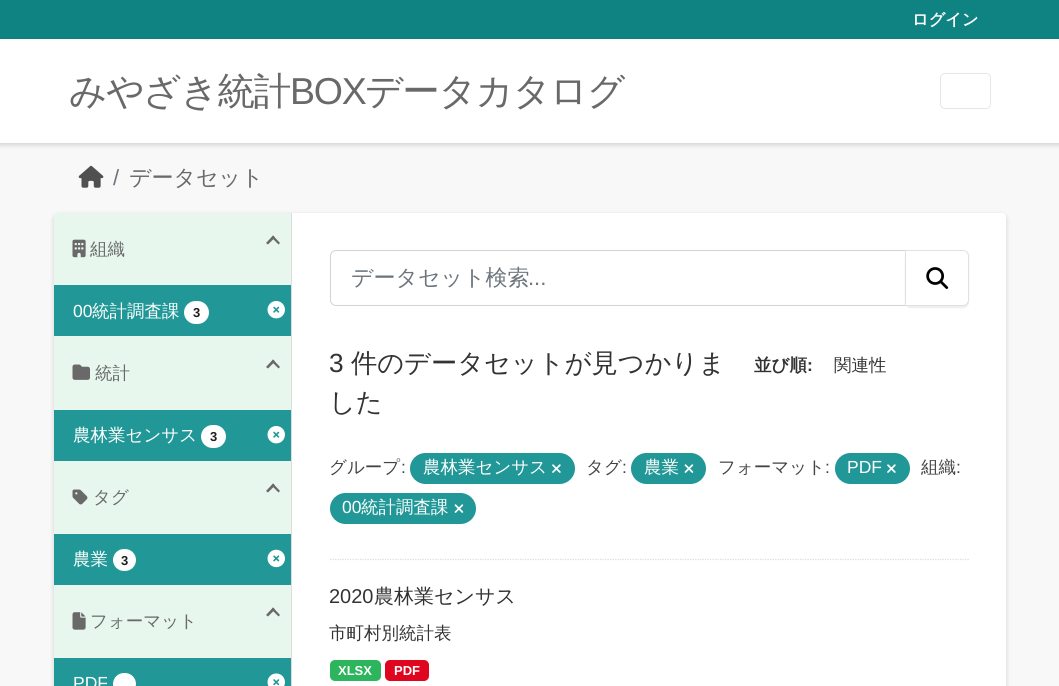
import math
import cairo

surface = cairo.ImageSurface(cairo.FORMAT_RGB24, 1059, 686)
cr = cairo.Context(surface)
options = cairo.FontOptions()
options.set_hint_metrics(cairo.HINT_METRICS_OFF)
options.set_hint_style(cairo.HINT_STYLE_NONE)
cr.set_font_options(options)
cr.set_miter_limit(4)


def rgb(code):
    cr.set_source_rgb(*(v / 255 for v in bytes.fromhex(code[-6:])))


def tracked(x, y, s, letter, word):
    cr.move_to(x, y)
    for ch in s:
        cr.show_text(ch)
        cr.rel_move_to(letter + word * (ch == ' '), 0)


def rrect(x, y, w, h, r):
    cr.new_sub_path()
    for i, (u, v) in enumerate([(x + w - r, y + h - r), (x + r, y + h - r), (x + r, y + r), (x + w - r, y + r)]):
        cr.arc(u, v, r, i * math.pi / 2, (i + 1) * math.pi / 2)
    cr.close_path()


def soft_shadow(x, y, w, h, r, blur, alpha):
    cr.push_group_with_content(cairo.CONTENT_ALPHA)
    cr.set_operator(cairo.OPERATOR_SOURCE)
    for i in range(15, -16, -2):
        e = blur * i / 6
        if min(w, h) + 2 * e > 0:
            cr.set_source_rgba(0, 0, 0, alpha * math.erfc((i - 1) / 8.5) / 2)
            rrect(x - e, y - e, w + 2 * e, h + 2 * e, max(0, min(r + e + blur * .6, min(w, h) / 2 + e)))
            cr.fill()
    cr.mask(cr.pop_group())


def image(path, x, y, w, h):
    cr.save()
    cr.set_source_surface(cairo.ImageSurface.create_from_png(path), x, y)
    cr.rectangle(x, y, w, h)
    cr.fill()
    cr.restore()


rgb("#0f8382")
cr.paint()
rgb("#f8f8f8")
cr.rectangle(0, 143, 1059, 543)
cr.fill()
rgb("#000000")
soft_shadow(0, 41, 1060, 104, 0, 2.5, 0.16)
rgb("#ffffff")
cr.rectangle(0, 39, 1059, 104)
cr.fill()
rrect(940.5, 73.5, 50, 35, 4.5)
rgb("#e6e6e6")
cr.set_line_width(1)
cr.stroke()
image("img/1.png", 78, 165, 26, 23)
rgb("#000000")
soft_shadow(54, 215, 952, 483, 4, 2.5, 0.16)
rgb("#ffffff")
rrect(54, 213, 952, 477, 4)
cr.fill()
rgb("#e7f7ee")
cr.new_path()
cr.move_to(58, 213)
cr.line_to(291, 213)
cr.line_to(291, 285)
cr.line_to(54, 285)
cr.line_to(54, 217)
cr.curve_to(54, 215, 56, 213, 58, 213)
cr.close_path()
cr.fill()
image("img/2.png", 72, 239, 14, 19)
rgb("#696969")
cr.new_path()
cr.move_to(273, 235.5)
cr.line_to(280, 243)
cr.line_to(278.5, 244.5)
cr.line_to(271.5, 237.5)
cr.close_path()
cr.fill()
cr.new_path()
cr.move_to(273, 235.5)
cr.line_to(275, 237.5)
cr.line_to(268, 244.5)
cr.line_to(266, 243)
cr.close_path()
cr.fill()
rgb("#219897")
cr.rectangle(54, 285, 237, 51)
cr.fill()
rgb("#ffffff")
rrect(184, 301, 25, 23, 11.5)
cr.fill()
image("img/3.png", 267, 300, 18, 19)
rgb("#e7f7ee")
cr.rectangle(54, 336, 237, 74)
cr.fill()
image("img/4.png", 72, 364, 18, 16)
rgb("#696969")
cr.new_path()
cr.move_to(273, 359.5)
cr.line_to(280, 367)
cr.line_to(278.5, 368.5)
cr.line_to(271.5, 361.5)
cr.close_path()
cr.fill()
cr.new_path()
cr.move_to(273, 359.5)
cr.line_to(275, 361.5)
cr.line_to(268, 368.5)
cr.line_to(266, 367)
cr.close_path()
cr.fill()
rgb("#219897")
cr.rectangle(54, 410, 237, 51)
cr.fill()
rgb("#ffffff")
rrect(201, 425, 25, 23, 11.5)
cr.fill()
image("img/3.png", 267, 425, 18, 19)
rgb("#e7f7ee")
cr.rectangle(54, 461, 237, 73)
cr.fill()
rgb("#696969")
cr.new_path()
cr.move_to(273, 483.5)
cr.line_to(280, 491)
cr.line_to(278.5, 492.5)
cr.line_to(271.5, 485.5)
cr.close_path()
cr.fill()
cr.new_path()
cr.move_to(273, 483.5)
cr.line_to(275, 485.5)
cr.line_to(268, 492.5)
cr.line_to(266, 491)
cr.close_path()
cr.fill()
image("img/5.png", 72, 489, 16, 16)
rgb("#219897")
cr.rectangle(54, 534, 237, 51)
cr.fill()
rgb("#ffffff")
rrect(113, 549, 23, 22, 11)
cr.fill()
image("img/6.png", 267, 549, 18, 19)
rgb("#e7f7ee")
cr.rectangle(54, 585, 237, 73)
cr.fill()
image("img/7.png", 72, 612, 14, 18)
rgb("#696969")
cr.new_path()
cr.move_to(273, 607.5)
cr.line_to(280, 615)
cr.line_to(278.5, 616.5)
cr.line_to(271.5, 609.5)
cr.close_path()
cr.fill()
cr.new_path()
cr.move_to(273, 607.5)
cr.line_to(275, 609.5)
cr.line_to(268, 616.5)
cr.line_to(266, 615)
cr.close_path()
cr.fill()
rgb("#219897")
cr.rectangle(54, 658, 237, 28)
cr.fill()
rgb("#ffffff")
rrect(113, 673, 23, 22, 11)
cr.fill()
image("img/8.png", 267, 673, 18, 13)
rgb("#dddddd")
cr.rectangle(291, 213, 1, 473)
cr.fill()
cr.new_path()
cr.move_to(330, 559.5)
cr.line_to(969, 559.5)
cr.set_line_width(1.2)
cr.set_dash([1.25, 1.25])
cr.stroke()
cr.new_path()
cr.move_to(336, 250.5)
cr.line_to(905.5, 250.5)
cr.line_to(905.5, 305.5)
cr.line_to(336, 305.5)
cr.curve_to(333, 305.5, 330.5, 303, 330.5, 300)
cr.line_to(330.5, 256)
cr.curve_to(330.5, 253, 333, 250.5, 336, 250.5)
cr.close_path()
rgb("#ced4da")
cr.set_line_width(1)
cr.set_dash([])
cr.stroke()
rgb("#000000")
soft_shadow(905, 251, 64, 57, 6, 0.5, 0.07)
rgb("#ffffff")
cr.new_path()
cr.move_to(905.5, 250.5)
cr.line_to(963, 250.5)
cr.curve_to(966, 250.5, 968.5, 253, 968.5, 256)
cr.line_to(968.5, 300)
cr.curve_to(968.5, 303, 966, 305.5, 963, 305.5)
cr.line_to(905.5, 305.5)
cr.close_path()
cr.fill_preserve()
rgb("#dee2e6")
cr.stroke()
image("img/9.png", 926, 267, 23, 22)
rgb("#219897")
rrect(410, 453, 165, 31, 15.5)
cr.fill()
image("img/10.png", 552, 464, 9, 9)
rrect(631, 453, 75, 31, 15.5)
cr.fill()
image("img/11.png", 684, 464, 10, 9)
rrect(835, 453, 75, 31, 15.5)
cr.fill()
image("img/10.png", 887, 464, 9, 9)
rrect(330, 493, 146, 31, 15.5)
cr.fill()
image("img/11.png", 454, 504, 10, 9)
rgb("#2db55d")
rrect(330, 660, 51, 21, 5)
cr.fill()
rgb("#e0051e")
rrect(385, 660, 44, 21, 5)
cr.fill()
cr.select_font_face("WenQuanYi Zen Hei", cairo.FONT_SLANT_NORMAL, cairo.FONT_WEIGHT_BOLD)
cr.set_font_size(16.25)
rgb("#ffffff")
cr.move_to(912, 25)
cr.show_text("ログイン")
cr.select_font_face("WenQuanYi Zen Hei Medium")
cr.set_font_size(37.5)
rgb("#696969")
tracked(69, 104, "みやざき統計", -1.25, 0)
cr.select_font_face("Liberation Sans")
tracked(290, 104, "BOX", -1.25, 0)
cr.select_font_face("WenQuanYi Zen Hei Medium")
tracked(365, 104, "データカタログ", -1.25, 0)
cr.select_font_face("Liberation Sans")
cr.set_font_size(22)
rgb("#6c757d")
cr.move_to(113, 185)
cr.show_text("/")
cr.select_font_face("WenQuanYi Zen Hei Medium")
rgb("#696969")
cr.move_to(129, 185)
cr.show_text("データセット")
cr.set_font_size(17.5)
cr.move_to(90, 255)
cr.show_text("組織")
cr.select_font_face("Liberation Sans")
rgb("#ffffff")
cr.move_to(73, 317)
cr.show_text("00")
cr.select_font_face("WenQuanYi Zen Hei Medium")
cr.move_to(92, 317)
cr.show_text("統計調査課")
cr.select_font_face("Liberation Sans", cairo.FONT_SLANT_NORMAL, cairo.FONT_WEIGHT_BOLD)
cr.set_font_size(13)
rgb("#1e1e1e")
cr.move_to(193, 317)
cr.show_text("3")
cr.select_font_face("WenQuanYi Zen Hei Medium")
cr.set_font_size(17.5)
rgb("#696969")
cr.move_to(95, 379)
cr.show_text("統計")
rgb("#ffffff")
cr.move_to(73, 441)
cr.show_text("農林業センサス")
cr.select_font_face("Liberation Sans", cairo.FONT_SLANT_NORMAL, cairo.FONT_WEIGHT_BOLD)
cr.set_font_size(13)
rgb("#1e1e1e")
cr.move_to(210, 441)
cr.show_text("3")
cr.select_font_face("WenQuanYi Zen Hei Medium")
cr.set_font_size(17.5)
rgb("#696969")
cr.move_to(93, 503)
cr.show_text("タグ")
rgb("#ffffff")
cr.move_to(73, 565)
cr.show_text("農業")
cr.select_font_face("Liberation Sans", cairo.FONT_SLANT_NORMAL, cairo.FONT_WEIGHT_BOLD)
cr.set_font_size(13)
rgb("#1e1e1e")
cr.move_to(121, 565)
cr.show_text("3")
cr.select_font_face("WenQuanYi Zen Hei Medium")
cr.set_font_size(17.5)
rgb("#696969")
cr.move_to(90, 627)
cr.show_text("フォーマット")
cr.select_font_face("Liberation Sans")
rgb("#ffffff")
cr.move_to(73, 689)
cr.show_text("PDF")
cr.select_font_face("WenQuanYi Zen Hei Medium")
cr.set_font_size(22)
rgb("#6c757d")
cr.move_to(351, 285)
cr.show_text("データセット検索")
cr.select_font_face("Liberation Sans")
cr.move_to(528, 285)
cr.show_text("...")
cr.set_font_size(26.25)
rgb("#333333")
cr.move_to(329, 372)
cr.show_text("3")
cr.select_font_face("WenQuanYi Zen Hei Medium")
cr.move_to(351, 372)
cr.show_text("件のデータセットが見つかりま")
cr.move_to(329, 411)
cr.show_text("した")
cr.select_font_face("WenQuanYi Zen Hei", cairo.FONT_SLANT_NORMAL, cairo.FONT_WEIGHT_BOLD)
cr.set_font_size(17.5)
cr.move_to(754, 371)
cr.show_text("並び順")
cr.select_font_face("Liberation Sans", cairo.FONT_SLANT_NORMAL, cairo.FONT_WEIGHT_BOLD)
cr.move_to(807, 371)
cr.show_text(":")
cr.select_font_face("WenQuanYi Zen Hei Medium")
cr.move_to(834, 371)
cr.show_text("関連性")
rgb("#444444")
cr.move_to(329, 473)
cr.show_text("グループ")
cr.select_font_face("Liberation Sans")
cr.move_to(401, 473)
cr.show_text(":")
cr.select_font_face("WenQuanYi Zen Hei Medium")
rgb("#ffffff")
cr.move_to(423, 473)
cr.show_text("農林業センサス")
rgb("#444444")
cr.move_to(586, 473)
cr.show_text("タグ")
cr.select_font_face("Liberation Sans")
cr.move_to(622, 473)
cr.show_text(":")
cr.select_font_face("WenQuanYi Zen Hei Medium")
rgb("#ffffff")
cr.move_to(644, 473)
cr.show_text("農業")
rgb("#444444")
cr.move_to(718, 473)
cr.show_text("フォーマット")
cr.select_font_face("Liberation Sans")
cr.move_to(825, 473)
cr.show_text(":")
rgb("#ffffff")
cr.move_to(847, 473)
cr.show_text("PDF")
cr.select_font_face("WenQuanYi Zen Hei Medium")
rgb("#444444")
cr.move_to(921, 473)
cr.show_text("組織")
cr.select_font_face("Liberation Sans")
cr.move_to(956, 473)
cr.show_text(":")
rgb("#ffffff")
cr.move_to(342, 513)
cr.show_text("00")
cr.select_font_face("WenQuanYi Zen Hei Medium")
cr.move_to(361, 513)
cr.show_text("統計調査課")
cr.select_font_face("Liberation Sans")
cr.set_font_size(20)
rgb("#333333")
cr.move_to(329, 603)
cr.show_text("2020")
cr.select_font_face("WenQuanYi Zen Hei Medium")
cr.move_to(374, 603)
cr.show_text("農林業センサス")
cr.set_font_size(17.5)
cr.move_to(329, 639)
cr.show_text("市町村別統計表")
cr.select_font_face("Liberation Sans", cairo.FONT_SLANT_NORMAL, cairo.FONT_WEIGHT_BOLD)
cr.set_font_size(13)
rgb("#ffffff")
cr.move_to(338, 675)
cr.show_text("XLSX")
cr.move_to(394, 675)
cr.show_text("PDF")
surface.write_to_png("page.png")
